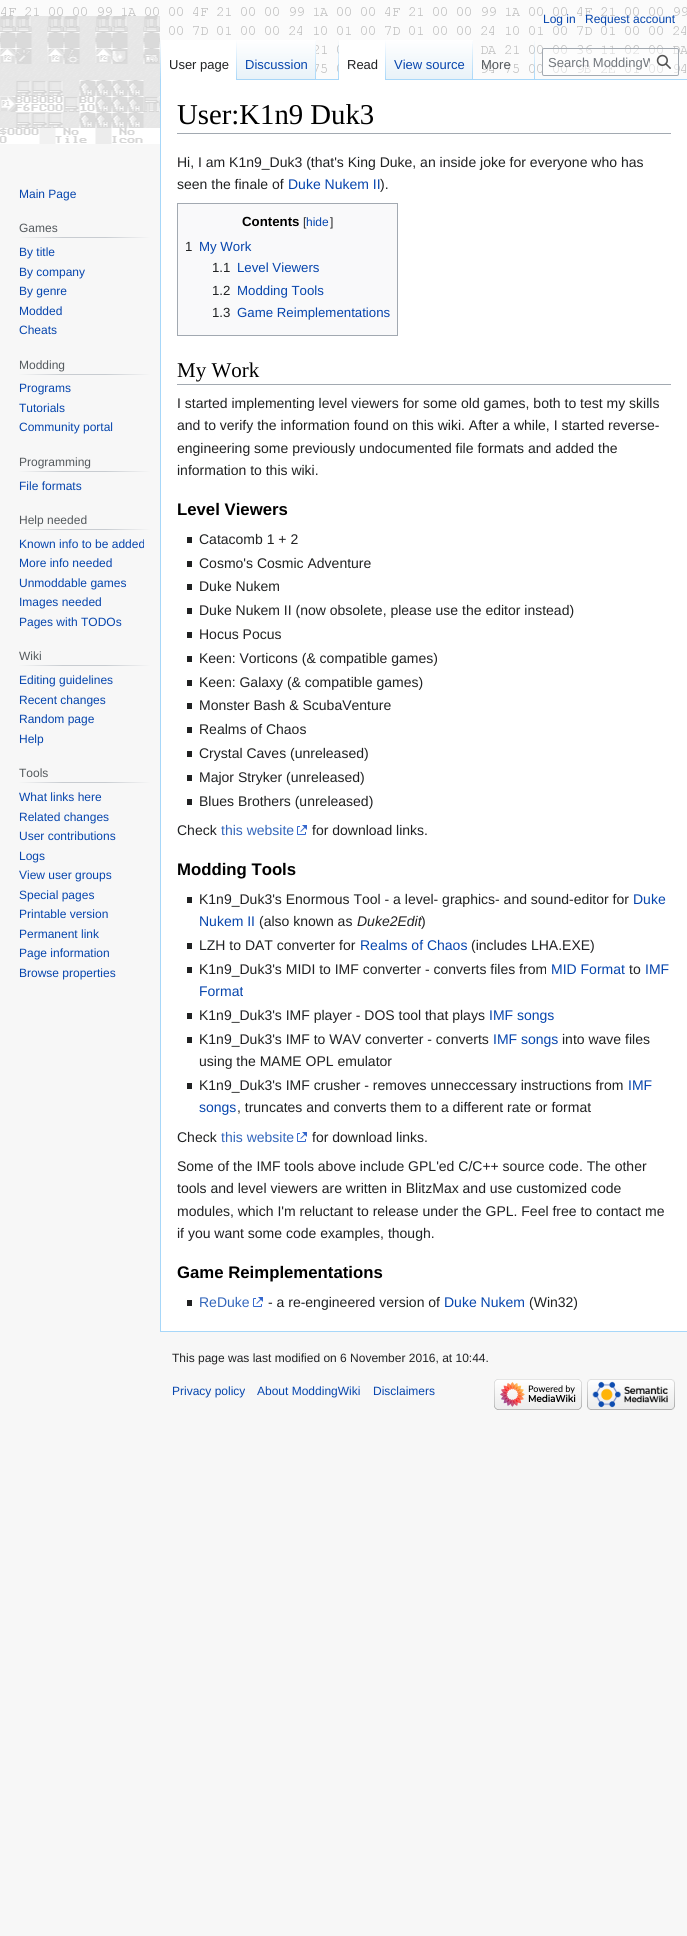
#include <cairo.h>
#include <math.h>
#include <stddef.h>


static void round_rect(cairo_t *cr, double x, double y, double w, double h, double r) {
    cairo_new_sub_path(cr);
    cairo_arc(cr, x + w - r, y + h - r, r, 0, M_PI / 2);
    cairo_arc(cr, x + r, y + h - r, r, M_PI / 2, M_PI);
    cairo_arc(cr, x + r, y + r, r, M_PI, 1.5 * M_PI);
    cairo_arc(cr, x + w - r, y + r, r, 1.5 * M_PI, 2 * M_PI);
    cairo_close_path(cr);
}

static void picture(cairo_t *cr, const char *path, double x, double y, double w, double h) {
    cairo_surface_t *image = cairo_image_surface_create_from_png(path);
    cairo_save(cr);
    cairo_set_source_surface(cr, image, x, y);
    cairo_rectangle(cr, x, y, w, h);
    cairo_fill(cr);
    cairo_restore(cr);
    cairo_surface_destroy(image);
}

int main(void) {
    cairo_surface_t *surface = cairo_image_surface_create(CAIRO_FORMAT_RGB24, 687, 1936);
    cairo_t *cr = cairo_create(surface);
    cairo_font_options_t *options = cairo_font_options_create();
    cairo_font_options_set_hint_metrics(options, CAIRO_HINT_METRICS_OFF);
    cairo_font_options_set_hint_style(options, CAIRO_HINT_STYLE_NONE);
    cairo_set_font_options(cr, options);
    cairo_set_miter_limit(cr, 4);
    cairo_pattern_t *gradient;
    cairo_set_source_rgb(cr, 0.965, 0.965, 0.965);
    cairo_paint(cr);
    cairo_set_source_rgb(cr, 0.984, 0.984, 0.984);
    cairo_rectangle(cr, 0, 0, 687, 79);
    cairo_fill(cr);
    picture(cr, "img1.png", 1, 7, 686, 66);
    cairo_select_font_face(cr, "Liberation Sans", CAIRO_FONT_SLANT_NORMAL, CAIRO_FONT_WEIGHT_NORMAL);
    cairo_set_font_size(cr, 12);
    cairo_set_source_rgb(cr, 0.024, 0.271, 0.678);
    cairo_move_to(cr, 543, 23);
    cairo_show_text(cr, "Log in");
    cairo_move_to(cr, 585, 23);
    cairo_show_text(cr, "Request account");
    cairo_set_source_rgb(cr, 0.655, 0.843, 0.976);
    cairo_rectangle(cr, 160, 1331, 527, 1);
    cairo_fill(cr);
    cairo_rectangle(cr, 160, 79, 1, 1253);
    cairo_fill(cr);
    gradient = cairo_pattern_create_linear(161, 40, 161, 80);
    cairo_pattern_add_color_stop_rgba(gradient, 0, 0.655, 0.843, 0.976, 0);
    cairo_pattern_add_color_stop_rgba(gradient, 1, 0.655, 0.843, 0.976, 1);
    cairo_set_source(cr, gradient);
    cairo_pattern_destroy(gradient);
    cairo_rectangle(cr, 160, 40, 1, 40);
    cairo_fill(cr);
    cairo_set_source_rgb(cr, 1, 1, 1);
    cairo_rectangle(cr, 161, 40, 75, 40);
    cairo_fill(cr);
    gradient = cairo_pattern_create_linear(237, 40, 237, 80);
    cairo_pattern_add_color_stop_rgba(gradient, 0, 1, 1, 1, 1);
    cairo_pattern_add_color_stop_rgba(gradient, 1, 0.655, 0.843, 0.976, 1);
    cairo_set_source(cr, gradient);
    cairo_pattern_destroy(gradient);
    cairo_rectangle(cr, 236, 40, 1, 40);
    cairo_fill(cr);
    cairo_set_font_size(cr, 13);
    cairo_set_source_rgb(cr, 0.125, 0.129, 0.133);
    cairo_move_to(cr, 169, 69);
    cairo_show_text(cr, "User page");
    gradient = cairo_pattern_create_linear(277, 80, 277, 40);
    cairo_pattern_add_color_stop_rgba(gradient, 0, 0.467, 0.757, 0.965, 1);
    cairo_pattern_add_color_stop_rgba(gradient, 0.03, 0.91, 0.949, 0.973, 1);
    cairo_pattern_add_color_stop_rgba(gradient, 1, 1, 1, 1, 1);
    cairo_set_source(cr, gradient);
    cairo_pattern_destroy(gradient);
    cairo_rectangle(cr, 237, 40, 79, 40);
    cairo_fill(cr);
    gradient = cairo_pattern_create_linear(316, 40, 316, 80);
    cairo_pattern_add_color_stop_rgba(gradient, 0, 0.655, 0.843, 0.976, 0);
    cairo_pattern_add_color_stop_rgba(gradient, 1, 0.655, 0.843, 0.976, 1);
    cairo_set_source(cr, gradient);
    cairo_pattern_destroy(gradient);
    cairo_rectangle(cr, 315, 40, 1, 40);
    cairo_fill(cr);
    cairo_set_source_rgb(cr, 0.024, 0.271, 0.678);
    cairo_move_to(cr, 245, 69);
    cairo_show_text(cr, "Discussion");
    cairo_set_source_rgb(cr, 0.655, 0.843, 0.976);
    cairo_rectangle(cr, 316, 79, 371, 1);
    cairo_fill(cr);
    gradient = cairo_pattern_create_linear(339, 40, 339, 80);
    cairo_pattern_add_color_stop_rgba(gradient, 0, 0.655, 0.843, 0.976, 0);
    cairo_pattern_add_color_stop_rgba(gradient, 1, 0.655, 0.843, 0.976, 1);
    cairo_set_source(cr, gradient);
    cairo_pattern_destroy(gradient);
    cairo_rectangle(cr, 338, 40, 1, 40);
    cairo_fill(cr);
    cairo_set_source_rgb(cr, 1, 1, 1);
    cairo_rectangle(cr, 339, 40, 46, 40);
    cairo_fill(cr);
    gradient = cairo_pattern_create_linear(386, 40, 386, 80);
    cairo_pattern_add_color_stop_rgba(gradient, 0, 1, 1, 1, 1);
    cairo_pattern_add_color_stop_rgba(gradient, 1, 0.655, 0.843, 0.976, 1);
    cairo_set_source(cr, gradient);
    cairo_pattern_destroy(gradient);
    cairo_rectangle(cr, 385, 40, 1, 40);
    cairo_fill(cr);
    cairo_set_source_rgb(cr, 0.125, 0.129, 0.133);
    cairo_move_to(cr, 347, 69);
    cairo_show_text(cr, "Read");
    gradient = cairo_pattern_create_linear(430, 80, 430, 40);
    cairo_pattern_add_color_stop_rgba(gradient, 0, 0.467, 0.757, 0.965, 1);
    cairo_pattern_add_color_stop_rgba(gradient, 0.03, 0.91, 0.949, 0.973, 1);
    cairo_pattern_add_color_stop_rgba(gradient, 1, 1, 1, 1, 1);
    cairo_set_source(cr, gradient);
    cairo_pattern_destroy(gradient);
    cairo_rectangle(cr, 386, 40, 87, 39);
    cairo_fill(cr);
    gradient = cairo_pattern_create_linear(473, 40, 473, 80);
    cairo_pattern_add_color_stop_rgba(gradient, 0, 0.655, 0.843, 0.976, 0);
    cairo_pattern_add_color_stop_rgba(gradient, 1, 0.655, 0.843, 0.976, 1);
    cairo_set_source(cr, gradient);
    cairo_pattern_destroy(gradient);
    cairo_rectangle(cr, 472, 40, 1, 40);
    cairo_fill(cr);
    cairo_set_source_rgb(cr, 0.024, 0.271, 0.678);
    cairo_move_to(cr, 394, 69);
    cairo_show_text(cr, "View source");
    gradient = cairo_pattern_create_linear(535, 40, 535, 80);
    cairo_pattern_add_color_stop_rgba(gradient, 0, 0.655, 0.843, 0.976, 0);
    cairo_pattern_add_color_stop_rgba(gradient, 1, 0.655, 0.843, 0.976, 1);
    cairo_set_source(cr, gradient);
    cairo_pattern_destroy(gradient);
    cairo_rectangle(cr, 534, 40, 1, 40);
    cairo_fill(cr);
    cairo_set_source_rgb(cr, 0.329, 0.349, 0.365);
    cairo_move_to(cr, 481, 69);
    cairo_show_text(cr, "More");
    cairo_set_source_rgba(cr, 1, 1, 1, 0.5);
    round_rect(cr, 542.5, 48.5, 136, 27, 1.5);
    cairo_fill_preserve(cr);
    cairo_set_source_rgb(cr, 0.635, 0.663, 0.694);
    cairo_set_line_width(cr, 1);
    cairo_stroke(cr);
    cairo_save(cr);
    cairo_rectangle(cr, 548, 55, 102, 15);
    cairo_clip(cr);
    cairo_set_source_rgb(cr, 0.447, 0.467, 0.49);
    cairo_move_to(cr, 548, 67);
    cairo_show_text(cr, "Search ModdingW");
    cairo_restore(cr);
    picture(cr, "img2.png", 656, 54, 15, 15);
    picture(cr, "img3.png", 0, 16, 160, 128);
    cairo_set_font_size(cr, 12);
    cairo_set_source_rgb(cr, 0.024, 0.271, 0.678);
    cairo_move_to(cr, 19, 198);
    cairo_show_text(cr, "Main Page");
    gradient = cairo_pattern_create_linear(19, 238, 150, 238);
    cairo_pattern_add_color_stop_rgba(gradient, 0, 0.965, 0.965, 0.965, 1);
    cairo_pattern_add_color_stop_rgba(gradient, 0.33, 0.784, 0.8, 0.82, 1);
    cairo_pattern_add_color_stop_rgba(gradient, 0.66, 0.784, 0.8, 0.82, 1);
    cairo_pattern_add_color_stop_rgba(gradient, 1, 0.965, 0.965, 0.965, 1);
    cairo_set_source(cr, gradient);
    cairo_pattern_destroy(gradient);
    cairo_rectangle(cr, 19, 237, 131, 1);
    cairo_fill(cr);
    cairo_set_source_rgb(cr, 0.329, 0.349, 0.365);
    cairo_move_to(cr, 19, 232);
    cairo_show_text(cr, "Games");
    cairo_set_source_rgb(cr, 0.024, 0.271, 0.678);
    cairo_move_to(cr, 19, 256);
    cairo_show_text(cr, "By title");
    cairo_move_to(cr, 19, 276);
    cairo_show_text(cr, "By company");
    cairo_move_to(cr, 19, 295);
    cairo_show_text(cr, "By genre");
    cairo_move_to(cr, 19, 315);
    cairo_show_text(cr, "Modded");
    cairo_move_to(cr, 19, 334);
    cairo_show_text(cr, "Cheats");
    gradient = cairo_pattern_create_linear(19, 375, 150, 375);
    cairo_pattern_add_color_stop_rgba(gradient, 0, 0.965, 0.965, 0.965, 1);
    cairo_pattern_add_color_stop_rgba(gradient, 0.33, 0.784, 0.8, 0.82, 1);
    cairo_pattern_add_color_stop_rgba(gradient, 0.66, 0.784, 0.8, 0.82, 1);
    cairo_pattern_add_color_stop_rgba(gradient, 1, 0.965, 0.965, 0.965, 1);
    cairo_set_source(cr, gradient);
    cairo_pattern_destroy(gradient);
    cairo_rectangle(cr, 19, 374, 131, 1);
    cairo_fill(cr);
    cairo_set_source_rgb(cr, 0.329, 0.349, 0.365);
    cairo_move_to(cr, 19, 369);
    cairo_show_text(cr, "Modding");
    cairo_set_source_rgb(cr, 0.024, 0.271, 0.678);
    cairo_move_to(cr, 19, 392);
    cairo_show_text(cr, "Programs");
    cairo_move_to(cr, 19, 412);
    cairo_show_text(cr, "Tutorials");
    cairo_move_to(cr, 19, 431);
    cairo_show_text(cr, "Community portal");
    gradient = cairo_pattern_create_linear(19, 472, 150, 472);
    cairo_pattern_add_color_stop_rgba(gradient, 0, 0.965, 0.965, 0.965, 1);
    cairo_pattern_add_color_stop_rgba(gradient, 0.33, 0.784, 0.8, 0.82, 1);
    cairo_pattern_add_color_stop_rgba(gradient, 0.66, 0.784, 0.8, 0.82, 1);
    cairo_pattern_add_color_stop_rgba(gradient, 1, 0.965, 0.965, 0.965, 1);
    cairo_set_source(cr, gradient);
    cairo_pattern_destroy(gradient);
    cairo_rectangle(cr, 19, 471, 131, 1);
    cairo_fill(cr);
    cairo_set_source_rgb(cr, 0.329, 0.349, 0.365);
    cairo_move_to(cr, 19, 466);
    cairo_show_text(cr, "Programming");
    cairo_set_source_rgb(cr, 0.024, 0.271, 0.678);
    cairo_move_to(cr, 19, 490);
    cairo_show_text(cr, "File formats");
    gradient = cairo_pattern_create_linear(19, 530, 150, 530);
    cairo_pattern_add_color_stop_rgba(gradient, 0, 0.965, 0.965, 0.965, 1);
    cairo_pattern_add_color_stop_rgba(gradient, 0.33, 0.784, 0.8, 0.82, 1);
    cairo_pattern_add_color_stop_rgba(gradient, 0.66, 0.784, 0.8, 0.82, 1);
    cairo_pattern_add_color_stop_rgba(gradient, 1, 0.965, 0.965, 0.965, 1);
    cairo_set_source(cr, gradient);
    cairo_pattern_destroy(gradient);
    cairo_rectangle(cr, 19, 529, 131, 1);
    cairo_fill(cr);
    cairo_set_source_rgb(cr, 0.329, 0.349, 0.365);
    cairo_move_to(cr, 19, 524);
    cairo_show_text(cr, "Help needed");
    cairo_set_source_rgb(cr, 0.024, 0.271, 0.678);
    cairo_move_to(cr, 19, 548);
    cairo_show_text(cr, "Known info to be added");
    cairo_move_to(cr, 19, 567);
    cairo_show_text(cr, "More info needed");
    cairo_move_to(cr, 19, 587);
    cairo_show_text(cr, "Unmoddable games");
    cairo_move_to(cr, 19, 606);
    cairo_show_text(cr, "Images needed");
    cairo_move_to(cr, 19, 626);
    cairo_show_text(cr, "Pages with TODOs");
    gradient = cairo_pattern_create_linear(19, 666, 150, 666);
    cairo_pattern_add_color_stop_rgba(gradient, 0, 0.965, 0.965, 0.965, 1);
    cairo_pattern_add_color_stop_rgba(gradient, 0.33, 0.784, 0.8, 0.82, 1);
    cairo_pattern_add_color_stop_rgba(gradient, 0.66, 0.784, 0.8, 0.82, 1);
    cairo_pattern_add_color_stop_rgba(gradient, 1, 0.965, 0.965, 0.965, 1);
    cairo_set_source(cr, gradient);
    cairo_pattern_destroy(gradient);
    cairo_rectangle(cr, 19, 665, 131, 1);
    cairo_fill(cr);
    cairo_set_source_rgb(cr, 0.329, 0.349, 0.365);
    cairo_move_to(cr, 19, 660);
    cairo_show_text(cr, "Wiki");
    cairo_set_source_rgb(cr, 0.024, 0.271, 0.678);
    cairo_move_to(cr, 19, 684);
    cairo_show_text(cr, "Editing guidelines");
    cairo_move_to(cr, 19, 704);
    cairo_show_text(cr, "Recent changes");
    cairo_move_to(cr, 19, 723);
    cairo_show_text(cr, "Random page");
    cairo_move_to(cr, 19, 743);
    cairo_show_text(cr, "Help");
    gradient = cairo_pattern_create_linear(19, 783, 150, 783);
    cairo_pattern_add_color_stop_rgba(gradient, 0, 0.965, 0.965, 0.965, 1);
    cairo_pattern_add_color_stop_rgba(gradient, 0.33, 0.784, 0.8, 0.82, 1);
    cairo_pattern_add_color_stop_rgba(gradient, 0.66, 0.784, 0.8, 0.82, 1);
    cairo_pattern_add_color_stop_rgba(gradient, 1, 0.965, 0.965, 0.965, 1);
    cairo_set_source(cr, gradient);
    cairo_pattern_destroy(gradient);
    cairo_rectangle(cr, 19, 782, 131, 1);
    cairo_fill(cr);
    cairo_set_source_rgb(cr, 0.329, 0.349, 0.365);
    cairo_move_to(cr, 19, 777);
    cairo_show_text(cr, "Tools");
    cairo_set_source_rgb(cr, 0.024, 0.271, 0.678);
    cairo_move_to(cr, 19, 801);
    cairo_show_text(cr, "What links here");
    cairo_move_to(cr, 19, 821);
    cairo_show_text(cr, "Related changes");
    cairo_move_to(cr, 19, 840);
    cairo_show_text(cr, "User contributions");
    cairo_move_to(cr, 19, 860);
    cairo_show_text(cr, "Logs");
    cairo_move_to(cr, 19, 879);
    cairo_show_text(cr, "View user groups");
    cairo_move_to(cr, 19, 899);
    cairo_show_text(cr, "Special pages");
    cairo_move_to(cr, 19, 918);
    cairo_show_text(cr, "Printable version");
    cairo_move_to(cr, 19, 938);
    cairo_show_text(cr, "Permanent link");
    cairo_move_to(cr, 19, 957);
    cairo_show_text(cr, "Page information");
    cairo_move_to(cr, 19, 977);
    cairo_show_text(cr, "Browse properties");
    cairo_set_source_rgb(cr, 1, 1, 1);
    cairo_rectangle(cr, 161, 80, 526, 1251);
    cairo_fill(cr);
    cairo_set_source_rgb(cr, 0.635, 0.663, 0.694);
    cairo_rectangle(cr, 177, 133, 494, 1);
    cairo_fill(cr);
    cairo_select_font_face(cr, "Liberation Serif", CAIRO_FONT_SLANT_NORMAL, CAIRO_FONT_WEIGHT_NORMAL);
    cairo_set_font_size(cr, 28.75);
    cairo_set_source_rgb(cr, 0, 0, 0);
    cairo_move_to(cr, 177, 124);
    cairo_show_text(cr, "User:K1n9 Duk3");
    cairo_select_font_face(cr, "Liberation Sans", CAIRO_FONT_SLANT_NORMAL, CAIRO_FONT_WEIGHT_NORMAL);
    cairo_set_font_size(cr, 14);
    cairo_set_source_rgb(cr, 0.125, 0.129, 0.133);
    cairo_move_to(cr, 177, 167);
    cairo_show_text(cr, "Hi, I am K1n9_Duk3 (that's King Duke, an inside joke for everyone who has");
    cairo_move_to(cr, 177, 189);
    cairo_show_text(cr, "seen the finale of");
    cairo_set_source_rgb(cr, 0.024, 0.271, 0.678);
    cairo_move_to(cr, 288, 189);
    cairo_show_text(cr, "Duke Nukem II");
    cairo_set_source_rgb(cr, 0.125, 0.129, 0.133);
    cairo_move_to(cr, 380, 189);
    cairo_show_text(cr, ").");
    cairo_set_source_rgb(cr, 0.973, 0.976, 0.98);
    cairo_rectangle(cr, 177.5, 203.5, 220, 132);
    cairo_fill_preserve(cr);
    cairo_set_source_rgb(cr, 0.635, 0.663, 0.694);
    cairo_stroke(cr);
    cairo_select_font_face(cr, "Liberation Sans", CAIRO_FONT_SLANT_NORMAL, CAIRO_FONT_WEIGHT_BOLD);
    cairo_set_font_size(cr, 13.25);
    cairo_set_source_rgb(cr, 0, 0, 0);
    cairo_move_to(cr, 242, 226);
    cairo_show_text(cr, "Contents");
    cairo_select_font_face(cr, "Liberation Sans", CAIRO_FONT_SLANT_NORMAL, CAIRO_FONT_WEIGHT_NORMAL);
    cairo_set_font_size(cr, 12);
    cairo_set_source_rgb(cr, 0.125, 0.129, 0.133);
    cairo_move_to(cr, 303, 226);
    cairo_show_text(cr, "[");
    cairo_set_source_rgb(cr, 0.024, 0.271, 0.678);
    cairo_move_to(cr, 306, 226);
    cairo_show_text(cr, "hide");
    cairo_set_source_rgb(cr, 0.125, 0.129, 0.133);
    cairo_move_to(cr, 330, 226);
    cairo_show_text(cr, "]");
    cairo_set_font_size(cr, 13.25);
    cairo_move_to(cr, 185, 251);
    cairo_show_text(cr, "1");
    cairo_set_source_rgb(cr, 0.024, 0.271, 0.678);
    cairo_move_to(cr, 199, 251);
    cairo_show_text(cr, "My Work");
    cairo_set_source_rgb(cr, 0.125, 0.129, 0.133);
    cairo_move_to(cr, 212, 272);
    cairo_show_text(cr, "1.1");
    cairo_set_source_rgb(cr, 0.024, 0.271, 0.678);
    cairo_move_to(cr, 237, 272);
    cairo_show_text(cr, "Level Viewers");
    cairo_set_source_rgb(cr, 0.125, 0.129, 0.133);
    cairo_move_to(cr, 212, 295);
    cairo_show_text(cr, "1.2");
    cairo_set_source_rgb(cr, 0.024, 0.271, 0.678);
    cairo_move_to(cr, 237, 295);
    cairo_show_text(cr, "Modding Tools");
    cairo_set_source_rgb(cr, 0.125, 0.129, 0.133);
    cairo_move_to(cr, 212, 317);
    cairo_show_text(cr, "1.3");
    cairo_set_source_rgb(cr, 0.024, 0.271, 0.678);
    cairo_move_to(cr, 237, 317);
    cairo_show_text(cr, "Game Reimplementations");
    cairo_set_source_rgb(cr, 0.635, 0.663, 0.694);
    cairo_rectangle(cr, 177, 384, 494, 1);
    cairo_fill(cr);
    cairo_select_font_face(cr, "Liberation Serif", CAIRO_FONT_SLANT_NORMAL, CAIRO_FONT_WEIGHT_NORMAL);
    cairo_set_font_size(cr, 21);
    cairo_set_source_rgb(cr, 0, 0, 0);
    cairo_move_to(cr, 177, 377);
    cairo_show_text(cr, "My Work");
    cairo_select_font_face(cr, "Liberation Sans", CAIRO_FONT_SLANT_NORMAL, CAIRO_FONT_WEIGHT_NORMAL);
    cairo_set_font_size(cr, 14);
    cairo_set_source_rgb(cr, 0.125, 0.129, 0.133);
    cairo_move_to(cr, 177, 408);
    cairo_show_text(cr, "I started implementing level viewers for some old games, both to test my skills");
    cairo_move_to(cr, 177, 430);
    cairo_show_text(cr, "and to verify the information found on this wiki. After a while, I started reverse-");
    cairo_move_to(cr, 177, 453);
    cairo_show_text(cr, "engineering some previously undocumented file formats and added the");
    cairo_move_to(cr, 177, 475);
    cairo_show_text(cr, "information to this wiki.");
    cairo_select_font_face(cr, "Liberation Sans", CAIRO_FONT_SLANT_NORMAL, CAIRO_FONT_WEIGHT_BOLD);
    cairo_set_font_size(cr, 16.75);
    cairo_set_source_rgb(cr, 0, 0, 0);
    cairo_move_to(cr, 177, 515);
    cairo_show_text(cr, "Level Viewers");
    cairo_set_source_rgb(cr, 0.125, 0.129, 0.133);
    cairo_rectangle(cr, 187, 537, 5, 6);
    cairo_fill(cr);
    cairo_select_font_face(cr, "Liberation Sans", CAIRO_FONT_SLANT_NORMAL, CAIRO_FONT_WEIGHT_NORMAL);
    cairo_set_font_size(cr, 14);
    cairo_move_to(cr, 199, 544);
    cairo_show_text(cr, "Catacomb 1 + 2");
    cairo_rectangle(cr, 187, 561, 5, 6);
    cairo_fill(cr);
    cairo_move_to(cr, 199, 568);
    cairo_show_text(cr, "Cosmo's Cosmic Adventure");
    cairo_rectangle(cr, 187, 584, 5, 6);
    cairo_fill(cr);
    cairo_move_to(cr, 199, 591);
    cairo_show_text(cr, "Duke Nukem");
    cairo_rectangle(cr, 187, 608, 5, 6);
    cairo_fill(cr);
    cairo_move_to(cr, 199, 615);
    cairo_show_text(cr, "Duke Nukem II (now obsolete, please use the editor instead)");
    cairo_rectangle(cr, 187, 632, 5, 6);
    cairo_fill(cr);
    cairo_move_to(cr, 199, 639);
    cairo_show_text(cr, "Hocus Pocus");
    cairo_rectangle(cr, 187, 656, 5, 6);
    cairo_fill(cr);
    cairo_move_to(cr, 199, 663);
    cairo_show_text(cr, "Keen: Vorticons (& compatible games)");
    cairo_rectangle(cr, 187, 680, 5, 6);
    cairo_fill(cr);
    cairo_move_to(cr, 199, 687);
    cairo_show_text(cr, "Keen: Galaxy (& compatible games)");
    cairo_rectangle(cr, 187, 703, 5, 6);
    cairo_fill(cr);
    cairo_move_to(cr, 199, 710);
    cairo_show_text(cr, "Monster Bash & ScubaVenture");
    cairo_rectangle(cr, 187, 727, 5, 6);
    cairo_fill(cr);
    cairo_move_to(cr, 199, 734);
    cairo_show_text(cr, "Realms of Chaos");
    cairo_rectangle(cr, 187, 751, 5, 6);
    cairo_fill(cr);
    cairo_move_to(cr, 199, 758);
    cairo_show_text(cr, "Crystal Caves (unreleased)");
    cairo_rectangle(cr, 187, 775, 5, 6);
    cairo_fill(cr);
    cairo_move_to(cr, 199, 782);
    cairo_show_text(cr, "Major Stryker (unreleased)");
    cairo_rectangle(cr, 187, 799, 5, 6);
    cairo_fill(cr);
    cairo_move_to(cr, 199, 806);
    cairo_show_text(cr, "Blues Brothers (unreleased)");
    cairo_move_to(cr, 177, 835);
    cairo_show_text(cr, "Check");
    cairo_set_source_rgb(cr, 0.2, 0.4, 0.733);
    cairo_move_to(cr, 221, 835);
    cairo_show_text(cr, "this website");
    picture(cr, "img4.png", 297, 825, 10, 10);
    cairo_set_source_rgb(cr, 0.125, 0.129, 0.133);
    cairo_move_to(cr, 312, 835);
    cairo_show_text(cr, "for download links.");
    cairo_select_font_face(cr, "Liberation Sans", CAIRO_FONT_SLANT_NORMAL, CAIRO_FONT_WEIGHT_BOLD);
    cairo_set_font_size(cr, 16.75);
    cairo_set_source_rgb(cr, 0, 0, 0);
    cairo_move_to(cr, 177, 875);
    cairo_show_text(cr, "Modding Tools");
    cairo_set_source_rgb(cr, 0.125, 0.129, 0.133);
    cairo_rectangle(cr, 187, 897, 5, 6);
    cairo_fill(cr);
    cairo_select_font_face(cr, "Liberation Sans", CAIRO_FONT_SLANT_NORMAL, CAIRO_FONT_WEIGHT_NORMAL);
    cairo_set_font_size(cr, 14);
    cairo_move_to(cr, 199, 904);
    cairo_show_text(cr, "K1n9_Duk3's Enormous Tool - a level- graphics- and sound-editor for");
    cairo_set_source_rgb(cr, 0.024, 0.271, 0.678);
    cairo_move_to(cr, 633, 904);
    cairo_show_text(cr, "Duke");
    cairo_move_to(cr, 199, 926);
    cairo_show_text(cr, "Nukem II");
    cairo_set_source_rgb(cr, 0.125, 0.129, 0.133);
    cairo_move_to(cr, 259, 926);
    cairo_show_text(cr, "(also known as");
    cairo_select_font_face(cr, "Liberation Sans", CAIRO_FONT_SLANT_ITALIC, CAIRO_FONT_WEIGHT_NORMAL);
    cairo_move_to(cr, 357, 926);
    cairo_show_text(cr, "Duke2Edit");
    cairo_select_font_face(cr, "Liberation Sans", CAIRO_FONT_SLANT_NORMAL, CAIRO_FONT_WEIGHT_NORMAL);
    cairo_move_to(cr, 421, 926);
    cairo_show_text(cr, ")");
    cairo_rectangle(cr, 187, 943, 5, 6);
    cairo_fill(cr);
    cairo_move_to(cr, 199, 950);
    cairo_show_text(cr, "LZH to DAT converter for");
    cairo_set_source_rgb(cr, 0.024, 0.271, 0.678);
    cairo_move_to(cr, 360, 950);
    cairo_show_text(cr, "Realms of Chaos");
    cairo_set_source_rgb(cr, 0.125, 0.129, 0.133);
    cairo_move_to(cr, 471, 950);
    cairo_show_text(cr, "(includes LHA.EXE)");
    cairo_rectangle(cr, 187, 967, 5, 6);
    cairo_fill(cr);
    cairo_move_to(cr, 199, 974);
    cairo_show_text(cr, "K1n9_Duk3's MIDI to IMF converter - converts files from");
    cairo_set_source_rgb(cr, 0.024, 0.271, 0.678);
    cairo_move_to(cr, 551, 974);
    cairo_show_text(cr, "MID Format");
    cairo_set_source_rgb(cr, 0.125, 0.129, 0.133);
    cairo_move_to(cr, 629, 974);
    cairo_show_text(cr, "to");
    cairo_set_source_rgb(cr, 0.024, 0.271, 0.678);
    cairo_move_to(cr, 645, 974);
    cairo_show_text(cr, "IMF");
    cairo_move_to(cr, 199, 996);
    cairo_show_text(cr, "Format");
    cairo_set_source_rgb(cr, 0.125, 0.129, 0.133);
    cairo_rectangle(cr, 187, 1013, 5, 6);
    cairo_fill(cr);
    cairo_move_to(cr, 199, 1020);
    cairo_show_text(cr, "K1n9_Duk3's IMF player - DOS tool that plays");
    cairo_set_source_rgb(cr, 0.024, 0.271, 0.678);
    cairo_move_to(cr, 489, 1020);
    cairo_show_text(cr, "IMF songs");
    cairo_set_source_rgb(cr, 0.125, 0.129, 0.133);
    cairo_rectangle(cr, 187, 1037, 5, 6);
    cairo_fill(cr);
    cairo_move_to(cr, 199, 1044);
    cairo_show_text(cr, "K1n9_Duk3's IMF to WAV converter - converts");
    cairo_set_source_rgb(cr, 0.024, 0.271, 0.678);
    cairo_move_to(cr, 493, 1044);
    cairo_show_text(cr, "IMF songs");
    cairo_set_source_rgb(cr, 0.125, 0.129, 0.133);
    cairo_move_to(cr, 562, 1044);
    cairo_show_text(cr, "into wave files");
    cairo_move_to(cr, 199, 1066);
    cairo_show_text(cr, "using the MAME OPL emulator");
    cairo_rectangle(cr, 187, 1083, 5, 6);
    cairo_fill(cr);
    cairo_move_to(cr, 199, 1090);
    cairo_show_text(cr, "K1n9_Duk3's IMF crusher - removes unneccessary instructions from");
    cairo_set_source_rgb(cr, 0.024, 0.271, 0.678);
    cairo_move_to(cr, 628, 1090);
    cairo_show_text(cr, "IMF");
    cairo_move_to(cr, 199, 1112);
    cairo_show_text(cr, "songs");
    cairo_set_source_rgb(cr, 0.125, 0.129, 0.133);
    cairo_move_to(cr, 237, 1112);
    cairo_show_text(cr, ", truncates and converts them to a different rate or format");
    cairo_move_to(cr, 177, 1142);
    cairo_show_text(cr, "Check");
    cairo_set_source_rgb(cr, 0.2, 0.4, 0.733);
    cairo_move_to(cr, 221, 1142);
    cairo_show_text(cr, "this website");
    picture(cr, "img4.png", 297, 1132, 10, 10);
    cairo_set_source_rgb(cr, 0.125, 0.129, 0.133);
    cairo_move_to(cr, 312, 1142);
    cairo_show_text(cr, "for download links.");
    cairo_move_to(cr, 177, 1171);
    cairo_show_text(cr, "Some of the IMF tools above include GPL'ed C/C++ source code. The other");
    cairo_move_to(cr, 177, 1193);
    cairo_show_text(cr, "tools and level viewers are written in BlitzMax and use customized code");
    cairo_move_to(cr, 177, 1216);
    cairo_show_text(cr, "modules, which I'm reluctant to release under the GPL. Feel free to contact me");
    cairo_move_to(cr, 177, 1238);
    cairo_show_text(cr, "if you want some code examples, though.");
    cairo_select_font_face(cr, "Liberation Sans", CAIRO_FONT_SLANT_NORMAL, CAIRO_FONT_WEIGHT_BOLD);
    cairo_set_font_size(cr, 16.75);
    cairo_set_source_rgb(cr, 0, 0, 0);
    cairo_move_to(cr, 177, 1278);
    cairo_show_text(cr, "Game Reimplementations");
    cairo_set_source_rgb(cr, 0.125, 0.129, 0.133);
    cairo_rectangle(cr, 187, 1300, 5, 6);
    cairo_fill(cr);
    cairo_select_font_face(cr, "Liberation Sans", CAIRO_FONT_SLANT_NORMAL, CAIRO_FONT_WEIGHT_NORMAL);
    cairo_set_font_size(cr, 14);
    cairo_set_source_rgb(cr, 0.2, 0.4, 0.733);
    cairo_move_to(cr, 199, 1307);
    cairo_show_text(cr, "ReDuke");
    picture(cr, "img4.png", 253, 1297, 10, 10);
    cairo_set_source_rgb(cr, 0.125, 0.129, 0.133);
    cairo_move_to(cr, 268, 1307);
    cairo_show_text(cr, "- a re-engineered version of");
    cairo_set_source_rgb(cr, 0.024, 0.271, 0.678);
    cairo_move_to(cr, 444, 1307);
    cairo_show_text(cr, "Duke Nukem");
    cairo_set_source_rgb(cr, 0.125, 0.129, 0.133);
    cairo_move_to(cr, 529, 1307);
    cairo_show_text(cr, "(Win32)");
    cairo_set_font_size(cr, 12);
    cairo_move_to(cr, 172, 1362);
    cairo_show_text(cr, "This page was last modified on 6 November 2016, at 10:44.");
    cairo_set_source_rgb(cr, 0.024, 0.271, 0.678);
    cairo_move_to(cr, 172, 1395);
    cairo_show_text(cr, "Privacy policy");
    cairo_move_to(cr, 257, 1395);
    cairo_show_text(cr, "About ModdingWiki");
    cairo_move_to(cr, 373, 1395);
    cairo_show_text(cr, "Disclaimers");
    picture(cr, "img5.png", 494, 1379, 88, 31);
    picture(cr, "img6.png", 587, 1379, 88, 31);
    cairo_surface_write_to_png(surface, "page.png");
    cairo_font_options_destroy(options);
    cairo_destroy(cr);
    cairo_surface_destroy(surface);
    return 0;
}
